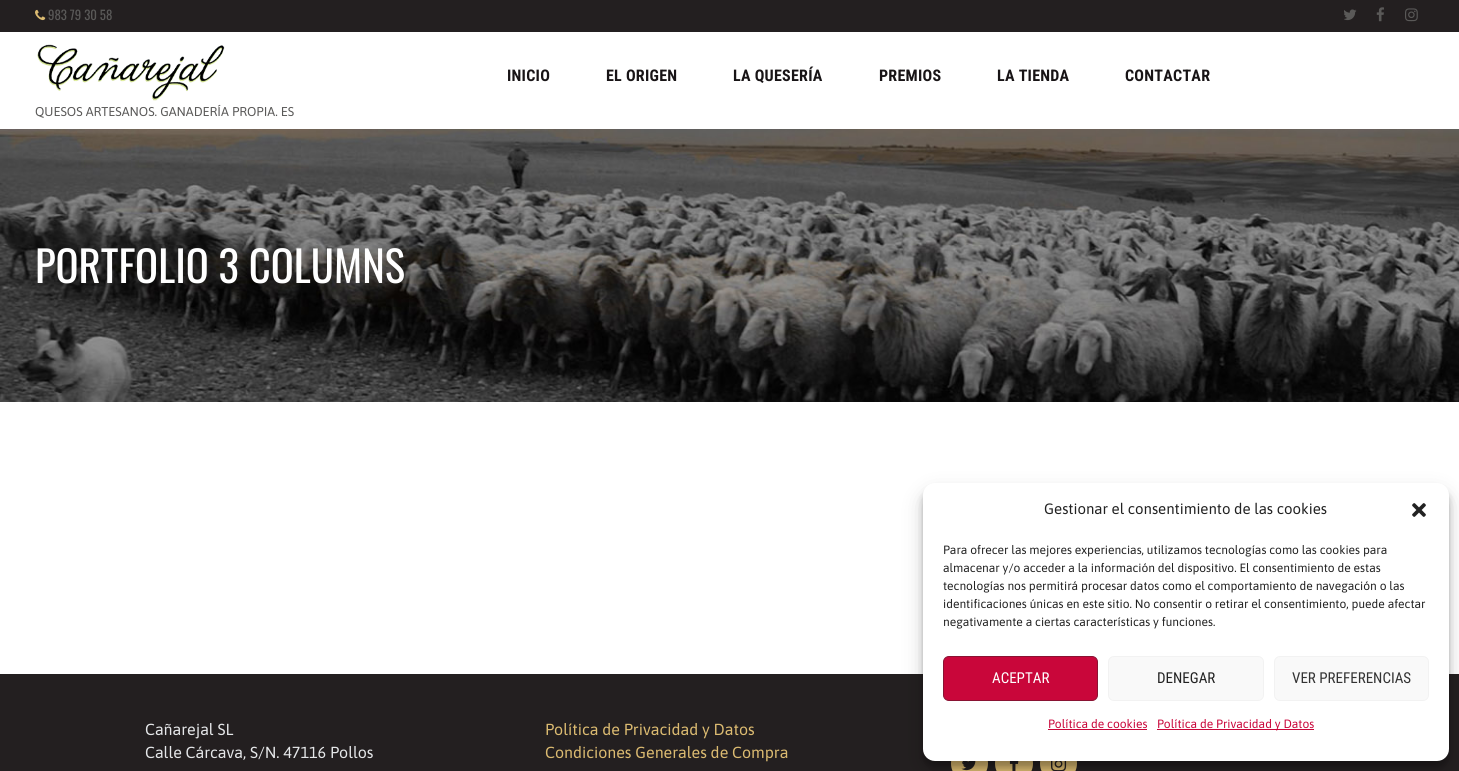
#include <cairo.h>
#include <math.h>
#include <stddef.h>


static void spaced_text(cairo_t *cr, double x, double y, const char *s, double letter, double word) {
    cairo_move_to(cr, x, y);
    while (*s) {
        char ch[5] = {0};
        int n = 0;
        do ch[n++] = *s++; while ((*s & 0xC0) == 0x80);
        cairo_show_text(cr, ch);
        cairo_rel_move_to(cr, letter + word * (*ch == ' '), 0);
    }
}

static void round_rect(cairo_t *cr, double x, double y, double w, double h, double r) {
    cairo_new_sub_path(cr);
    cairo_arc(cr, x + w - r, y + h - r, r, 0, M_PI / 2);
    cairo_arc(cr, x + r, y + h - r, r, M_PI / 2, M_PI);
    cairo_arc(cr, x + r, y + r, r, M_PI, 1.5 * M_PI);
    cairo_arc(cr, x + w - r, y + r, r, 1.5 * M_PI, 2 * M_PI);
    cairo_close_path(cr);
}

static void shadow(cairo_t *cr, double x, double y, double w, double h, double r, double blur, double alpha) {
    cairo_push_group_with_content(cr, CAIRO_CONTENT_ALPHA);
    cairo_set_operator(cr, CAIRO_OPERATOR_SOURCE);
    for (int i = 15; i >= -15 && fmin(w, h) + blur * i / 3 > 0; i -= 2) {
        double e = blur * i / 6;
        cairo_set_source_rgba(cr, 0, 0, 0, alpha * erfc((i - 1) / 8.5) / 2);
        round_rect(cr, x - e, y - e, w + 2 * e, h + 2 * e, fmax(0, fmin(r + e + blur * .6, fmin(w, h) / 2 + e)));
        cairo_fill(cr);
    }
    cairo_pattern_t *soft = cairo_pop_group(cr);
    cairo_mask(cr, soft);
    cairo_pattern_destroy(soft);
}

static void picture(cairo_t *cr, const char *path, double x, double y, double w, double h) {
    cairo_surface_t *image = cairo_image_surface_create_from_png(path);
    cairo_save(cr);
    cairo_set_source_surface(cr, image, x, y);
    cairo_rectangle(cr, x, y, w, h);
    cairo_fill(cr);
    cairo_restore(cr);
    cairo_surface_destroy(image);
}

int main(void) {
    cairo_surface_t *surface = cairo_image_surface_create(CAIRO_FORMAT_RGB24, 1459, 771);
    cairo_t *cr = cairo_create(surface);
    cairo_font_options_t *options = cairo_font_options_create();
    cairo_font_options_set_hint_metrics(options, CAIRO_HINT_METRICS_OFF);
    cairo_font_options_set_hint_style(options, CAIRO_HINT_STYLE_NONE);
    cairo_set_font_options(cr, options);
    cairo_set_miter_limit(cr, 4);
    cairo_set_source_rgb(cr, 1, 1, 1);
    cairo_paint(cr);
    cairo_set_source_rgb(cr, 0.137, 0.122, 0.125);
    cairo_rectangle(cr, 0, 0, 1459, 32);
    cairo_fill(cr);
    picture(cr, "img1.png", 35, 9, 11, 12);
    cairo_select_font_face(cr, "Oswald", CAIRO_FONT_SLANT_NORMAL, CAIRO_FONT_WEIGHT_NORMAL);
    cairo_set_font_size(cr, 12.8);
    cairo_set_source_rgb(cr, 0.353, 0.349, 0.345);
    cairo_move_to(cr, 48, 20);
    cairo_show_text(cr, "983 79 30 58");
    picture(cr, "img2.png", 1344, 9, 13, 12);
    picture(cr, "img3.png", 1376, 7, 8, 15);
    picture(cr, "img4.png", 1405, 8, 13, 14);
    cairo_select_font_face(cr, "Roboto Condensed", CAIRO_FONT_SLANT_NORMAL, CAIRO_FONT_WEIGHT_BOLD);
    cairo_set_font_size(cr, 16);
    cairo_set_source_rgb(cr, 0.094, 0.082, 0.086);
    spaced_text(cr, 507, 81, "INICIO", 0.25, 0);
    spaced_text(cr, 606, 81, "EL ORIGEN", 0.25, 0);
    spaced_text(cr, 733, 81, "LA QUESERÍA", 0.25, 0);
    spaced_text(cr, 879, 81, "PREMIOS", 0.25, 0);
    spaced_text(cr, 997, 81, "LA TIENDA", 0.25, 0);
    spaced_text(cr, 1125, 81, "CONTACTAR", 0.25, 0);
    picture(cr, "img5.png", 37, 44, 188, 57);
    cairo_select_font_face(cr, "Asap", CAIRO_FONT_SLANT_NORMAL, CAIRO_FONT_WEIGHT_NORMAL);
    cairo_set_font_size(cr, 12.8);
    cairo_set_source_rgb(cr, 0.353, 0.349, 0.345);
    cairo_move_to(cr, 35, 116);
    cairo_show_text(cr, "QUESOS ARTESANOS. GANADERÍA PROPIA. ES");
    picture(cr, "img6.png", 0, 129, 1459, 273);
    cairo_select_font_face(cr, "Oswald", CAIRO_FONT_SLANT_NORMAL, CAIRO_FONT_WEIGHT_NORMAL);
    cairo_set_font_size(cr, 42.75);
    cairo_set_source_rgb(cr, 1, 1, 1);
    cairo_move_to(cr, 35, 283);
    cairo_show_text(cr, "PORTFOLIO 3 COLUMNS");
    cairo_set_source_rgb(cr, 0.137, 0.122, 0.125);
    cairo_rectangle(cr, 0, 674, 1459, 97);
    cairo_fill(cr);
    cairo_select_font_face(cr, "Asap", CAIRO_FONT_SLANT_NORMAL, CAIRO_FONT_WEIGHT_NORMAL);
    cairo_set_font_size(cr, 16);
    cairo_set_source_rgb(cr, 0.898, 0.906, 0.914);
    cairo_move_to(cr, 145, 735);
    cairo_show_text(cr, "Cañarejal SL");
    cairo_move_to(cr, 145, 758);
    cairo_show_text(cr, "Calle Cárcava, S/N. 47116 Pollos");
    cairo_set_source_rgb(cr, 0.863, 0.733, 0.443);
    cairo_move_to(cr, 545, 735);
    cairo_show_text(cr, "Política de Privacidad y Datos");
    cairo_move_to(cr, 545, 758);
    cairo_show_text(cr, "Condiciones Generales de Compra");
    cairo_new_path(cr);
    cairo_arc(cr, 969.5, 763.5, 18.5, 0, 2 * M_PI);
    cairo_fill(cr);
    picture(cr, "img7.png", 961, 761, 15, 10);
    round_rect(cr, 995, 745, 38, 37, 18.5);
    cairo_fill(cr);
    picture(cr, "img8.png", 1009, 761, 10, 10);
    cairo_arc(cr, 1058.5, 763.5, 18.5, 0, 2 * M_PI);
    cairo_fill(cr);
    picture(cr, "img9.png", 1051, 761, 16, 10);
    cairo_set_source_rgb(cr, 0, 0, 0);
    shadow(cr, 923, 489, 526, 278, 12, 3, 0.23);
    shadow(cr, 923, 493, 526, 278, 12, 10, 0.19);
    cairo_set_source_rgb(cr, 1, 1, 1);
    round_rect(cr, 923, 483, 526, 278, 12);
    cairo_fill(cr);
    cairo_set_font_size(cr, 15);
    cairo_set_source_rgb(cr, 0.133, 0.133, 0.133);
    cairo_move_to(cr, 1044, 514);
    cairo_show_text(cr, "Gestionar el consentimiento de las cookies");
    picture(cr, "img10.png", 1412, 503, 14, 14);
    cairo_set_font_size(cr, 12);
    cairo_move_to(cr, 943, 554);
    cairo_show_text(cr, "Para ofrecer las mejores experiencias, utilizamos tecnologías como las cookies para");
    cairo_move_to(cr, 943, 572);
    cairo_show_text(cr, "almacenar y/o acceder a la información del dispositivo. El consentimiento de estas");
    cairo_move_to(cr, 943, 590);
    cairo_show_text(cr, "tecnologías nos permitirá procesar datos como el comportamiento de navegación o las");
    cairo_move_to(cr, 943, 608);
    cairo_show_text(cr, "identificaciones únicas en este sitio. No consentir o retirar el consentimiento, puede afectar");
    cairo_move_to(cr, 943, 626);
    cairo_show_text(cr, "negativamente a ciertas características y funciones.");
    cairo_set_source_rgb(cr, 0.788, 0.024, 0.227);
    round_rect(cr, 943.5, 656.5, 154, 44, 5.5);
    cairo_fill_preserve(cr);
    cairo_set_source_rgb(cr, 0.537, 0.078, 0.2);
    cairo_set_line_width(cr, 1);
    cairo_stroke(cr);
    cairo_select_font_face(cr, "Roboto Condensed", CAIRO_FONT_SLANT_NORMAL, CAIRO_FONT_WEIGHT_NORMAL);
    cairo_set_font_size(cr, 15);
    cairo_set_source_rgb(cr, 1, 1, 1);
    cairo_move_to(cr, 992, 683);
    cairo_show_text(cr, "ACEPTAR");
    cairo_set_source_rgb(cr, 0.976, 0.976, 0.976);
    round_rect(cr, 1108.5, 656.5, 155, 44, 5.5);
    cairo_fill_preserve(cr);
    cairo_set_source_rgb(cr, 0.949, 0.949, 0.949);
    cairo_stroke(cr);
    cairo_set_source_rgb(cr, 0.133, 0.133, 0.133);
    cairo_move_to(cr, 1157, 683);
    cairo_show_text(cr, "DENEGAR");
    cairo_set_source_rgb(cr, 0.976, 0.976, 0.976);
    round_rect(cr, 1274.5, 656.5, 154, 44, 5.5);
    cairo_fill_preserve(cr);
    cairo_set_source_rgb(cr, 0.949, 0.949, 0.949);
    cairo_stroke(cr);
    cairo_set_source_rgb(cr, 0.2, 0.2, 0.2);
    cairo_move_to(cr, 1292, 683);
    cairo_show_text(cr, "VER PREFERENCIAS");
    cairo_select_font_face(cr, "Asap", CAIRO_FONT_SLANT_NORMAL, CAIRO_FONT_WEIGHT_NORMAL);
    cairo_set_font_size(cr, 12);
    cairo_set_source_rgb(cr, 0.788, 0.024, 0.227);
    cairo_move_to(cr, 1048, 728);
    cairo_show_text(cr, "Política de cookies");
    cairo_rectangle(cr, 1048, 729, 99, 1);
    cairo_fill(cr);
    cairo_rectangle(cr, 1157, 729, 157, 1);
    cairo_fill(cr);
    cairo_move_to(cr, 1157, 728);
    cairo_show_text(cr, "Política de Privacidad y Datos");
    cairo_surface_write_to_png(surface, "page.png");
    cairo_font_options_destroy(options);
    cairo_destroy(cr);
    cairo_surface_destroy(surface);
    return 0;
}
